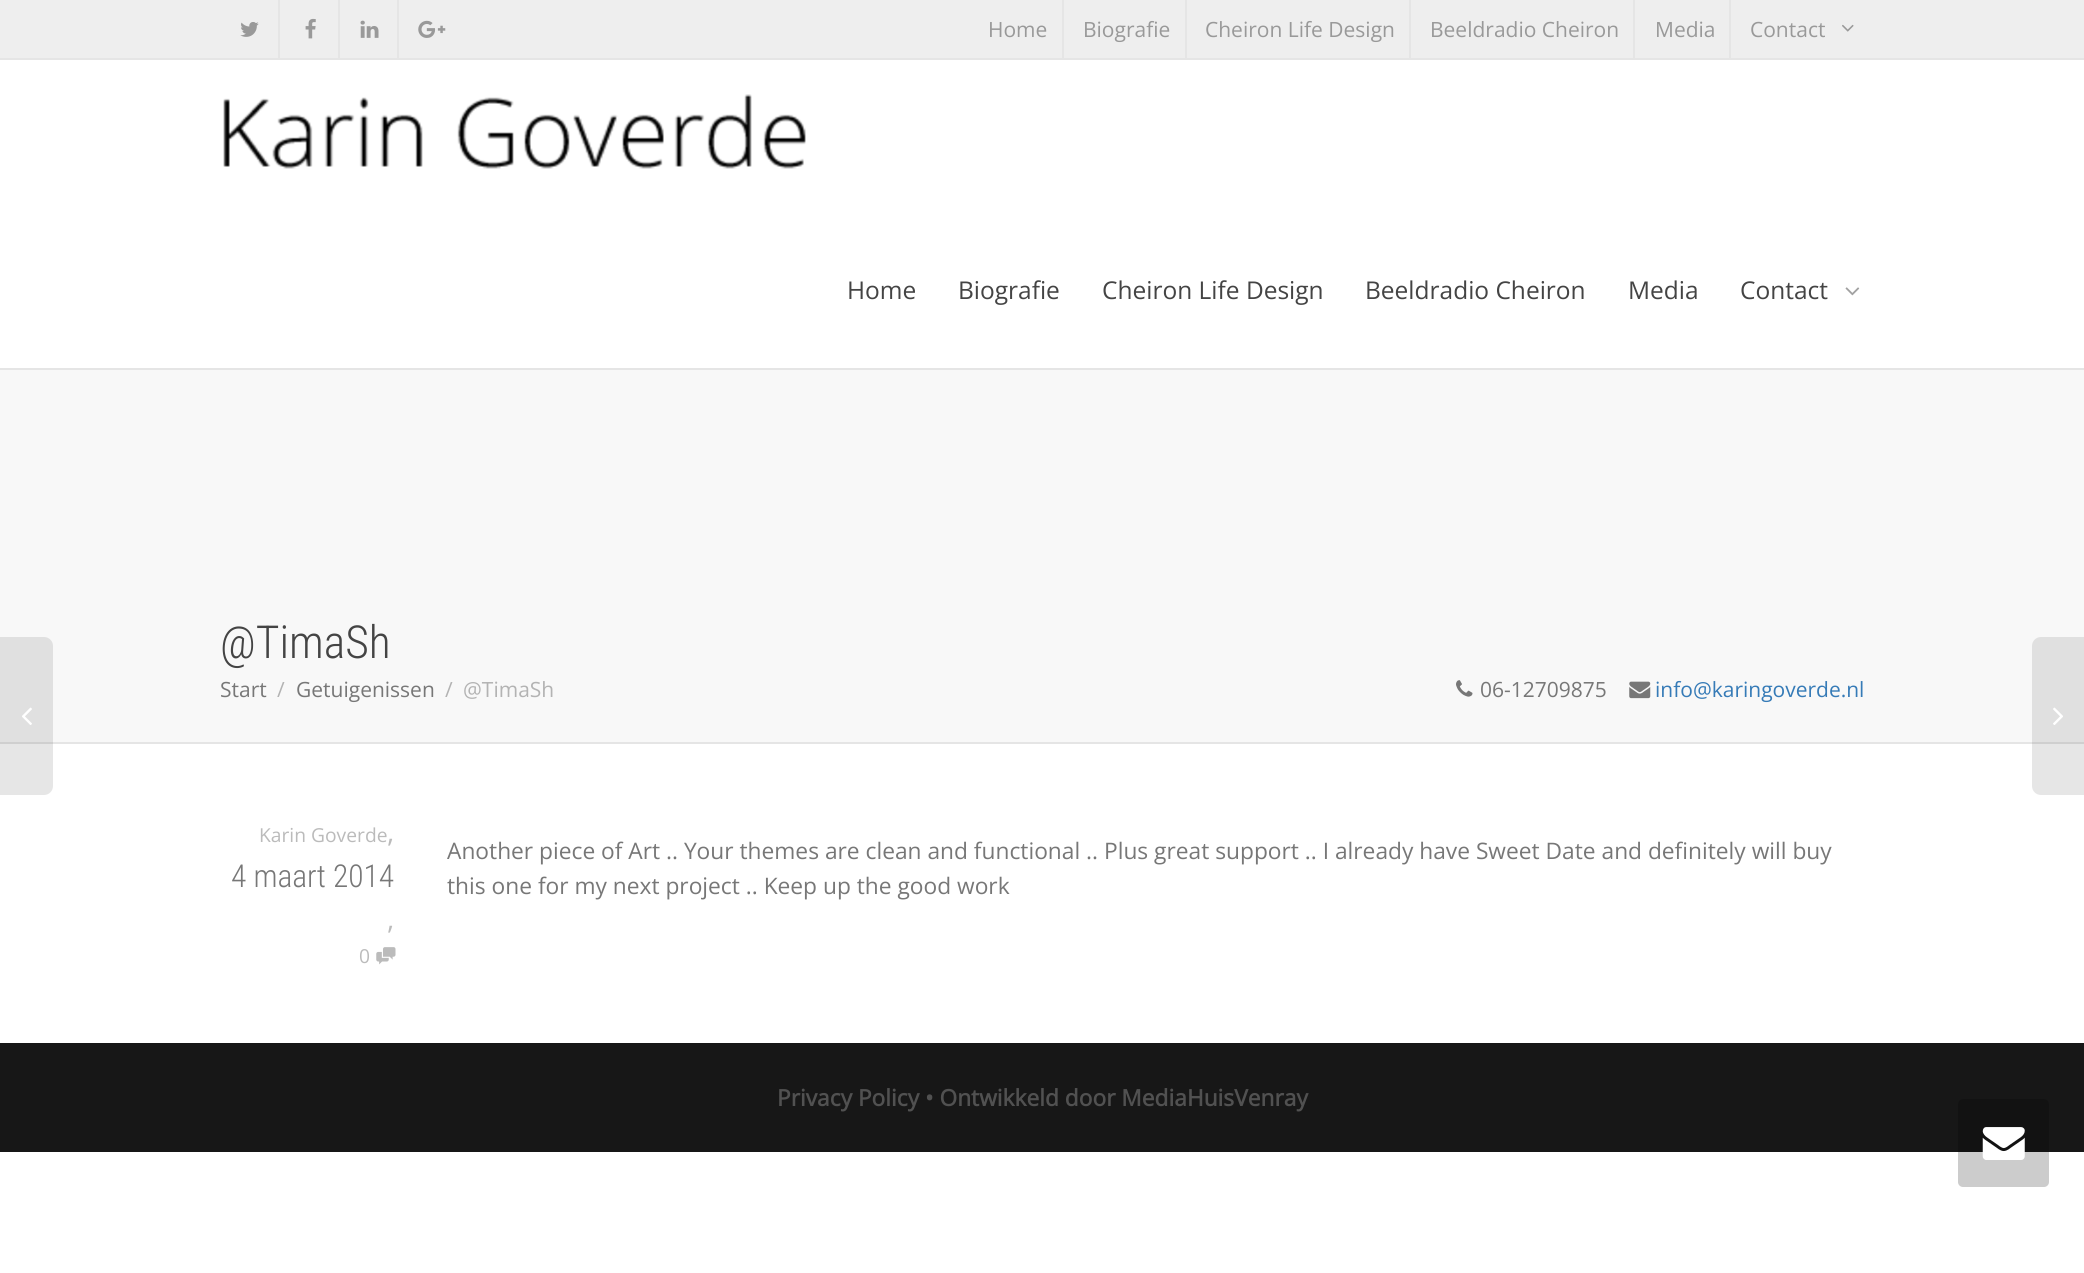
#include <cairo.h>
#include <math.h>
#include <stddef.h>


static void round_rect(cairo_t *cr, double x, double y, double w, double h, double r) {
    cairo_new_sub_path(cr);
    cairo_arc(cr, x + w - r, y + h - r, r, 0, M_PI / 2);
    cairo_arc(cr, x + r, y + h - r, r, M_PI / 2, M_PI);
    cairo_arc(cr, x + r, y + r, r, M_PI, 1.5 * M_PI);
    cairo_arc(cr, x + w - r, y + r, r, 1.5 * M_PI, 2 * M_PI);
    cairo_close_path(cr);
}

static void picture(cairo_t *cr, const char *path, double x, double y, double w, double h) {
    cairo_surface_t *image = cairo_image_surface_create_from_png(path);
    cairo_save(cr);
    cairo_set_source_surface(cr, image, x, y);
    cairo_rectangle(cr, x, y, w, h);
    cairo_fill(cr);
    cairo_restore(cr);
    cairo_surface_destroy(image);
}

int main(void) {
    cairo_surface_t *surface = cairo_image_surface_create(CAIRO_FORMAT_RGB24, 2084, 1273);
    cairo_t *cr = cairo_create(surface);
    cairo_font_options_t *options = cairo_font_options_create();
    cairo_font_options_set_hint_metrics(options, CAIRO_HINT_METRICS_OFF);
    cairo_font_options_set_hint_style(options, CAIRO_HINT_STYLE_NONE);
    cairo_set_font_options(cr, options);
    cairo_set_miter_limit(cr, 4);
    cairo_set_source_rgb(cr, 1, 1, 1);
    cairo_paint(cr);
    cairo_set_source_rgb(cr, 0.933, 0.933, 0.933);
    cairo_rectangle(cr, 0, 0, 2084, 58);
    cairo_fill(cr);
    cairo_set_source_rgb(cr, 0.898, 0.898, 0.898);
    cairo_rectangle(cr, 0, 58, 2084, 2);
    cairo_fill(cr);
    cairo_rectangle(cr, 278, 0, 2, 58);
    cairo_fill(cr);
    picture(cr, "img1.png", 240, 22, 19, 15);
    cairo_rectangle(cr, 338, 0, 2, 58);
    cairo_fill(cr);
    picture(cr, "img2.png", 305, 18, 11, 21);
    cairo_rectangle(cr, 397, 0, 2, 58);
    cairo_fill(cr);
    picture(cr, "img3.png", 360, 20, 19, 18);
    picture(cr, "img4.png", 418, 20, 28, 18);
    cairo_rectangle(cr, 1062, 0, 2, 58);
    cairo_fill(cr);
    cairo_select_font_face(cr, "Open Sans", CAIRO_FONT_SLANT_NORMAL, CAIRO_FONT_WEIGHT_NORMAL);
    cairo_set_font_size(cr, 21);
    cairo_set_source_rgb(cr, 0.6, 0.6, 0.6);
    cairo_move_to(cr, 988, 37);
    cairo_show_text(cr, "Home");
    cairo_set_source_rgb(cr, 0.898, 0.898, 0.898);
    cairo_rectangle(cr, 1185, 0, 2, 58);
    cairo_fill(cr);
    cairo_set_source_rgb(cr, 0.6, 0.6, 0.6);
    cairo_move_to(cr, 1083, 37);
    cairo_show_text(cr, "Biografie");
    cairo_set_source_rgb(cr, 0.898, 0.898, 0.898);
    cairo_rectangle(cr, 1409, 0, 2, 58);
    cairo_fill(cr);
    cairo_set_source_rgb(cr, 0.6, 0.6, 0.6);
    cairo_move_to(cr, 1205, 37);
    cairo_show_text(cr, "Cheiron Life Design");
    cairo_set_source_rgb(cr, 0.898, 0.898, 0.898);
    cairo_rectangle(cr, 1633, 0, 2, 58);
    cairo_fill(cr);
    cairo_set_source_rgb(cr, 0.6, 0.6, 0.6);
    cairo_move_to(cr, 1430, 37);
    cairo_show_text(cr, "Beeldradio Cheiron");
    cairo_set_source_rgb(cr, 0.898, 0.898, 0.898);
    cairo_rectangle(cr, 1729, 0, 2, 58);
    cairo_fill(cr);
    cairo_set_source_rgb(cr, 0.6, 0.6, 0.6);
    cairo_move_to(cr, 1655, 37);
    cairo_show_text(cr, "Media");
    cairo_move_to(cr, 1750, 37);
    cairo_show_text(cr, "Contact");
    picture(cr, "img5.png", 1842, 24, 12, 8);
    cairo_set_source_rgb(cr, 0.898, 0.898, 0.898);
    cairo_rectangle(cr, 0, 368, 2084, 2);
    cairo_fill(cr);
    picture(cr, "img6.png", 223, 94, 583, 75);
    cairo_set_font_size(cr, 24.5);
    cairo_set_source_rgb(cr, 0.267, 0.267, 0.267);
    cairo_move_to(cr, 847, 299);
    cairo_show_text(cr, "Home");
    cairo_move_to(cr, 958, 299);
    cairo_show_text(cr, "Biografie");
    cairo_move_to(cr, 1102, 299);
    cairo_show_text(cr, "Cheiron Life Design");
    cairo_move_to(cr, 1365, 299);
    cairo_show_text(cr, "Beeldradio Cheiron");
    cairo_move_to(cr, 1628, 299);
    cairo_show_text(cr, "Media");
    cairo_move_to(cr, 1740, 299);
    cairo_show_text(cr, "Contact");
    picture(cr, "img7.png", 1845, 287, 15, 9);
    cairo_set_source_rgb(cr, 0.969, 0.969, 0.969);
    cairo_rectangle(cr, 0, 370, 2084, 372);
    cairo_fill(cr);
    cairo_set_source_rgb(cr, 0.898, 0.898, 0.898);
    cairo_rectangle(cr, 0, 742, 2084, 2);
    cairo_fill(cr);
    cairo_select_font_face(cr, "Roboto Condensed Light", CAIRO_FONT_SLANT_NORMAL, CAIRO_FONT_WEIGHT_NORMAL);
    cairo_set_font_size(cr, 45.5);
    cairo_set_source_rgb(cr, 0.267, 0.267, 0.267);
    cairo_move_to(cr, 220, 658);
    cairo_show_text(cr, "@TimaSh");
    cairo_select_font_face(cr, "Open Sans", CAIRO_FONT_SLANT_NORMAL, CAIRO_FONT_WEIGHT_NORMAL);
    cairo_set_font_size(cr, 21);
    cairo_set_source_rgb(cr, 0.467, 0.467, 0.467);
    cairo_move_to(cr, 220, 697);
    cairo_show_text(cr, "Start");
    cairo_set_source_rgb(cr, 0.702, 0.702, 0.702);
    cairo_move_to(cr, 277, 697);
    cairo_show_text(cr, "/");
    cairo_set_source_rgb(cr, 0.467, 0.467, 0.467);
    cairo_move_to(cr, 296, 697);
    cairo_show_text(cr, "Getuigenissen");
    cairo_set_source_rgb(cr, 0.702, 0.702, 0.702);
    cairo_move_to(cr, 445, 697);
    cairo_show_text(cr, "/");
    cairo_move_to(cr, 463, 697);
    cairo_show_text(cr, "@TimaSh");
    picture(cr, "img8.png", 1456, 680, 17, 17);
    cairo_set_source_rgb(cr, 0.467, 0.467, 0.467);
    cairo_move_to(cr, 1480, 697);
    cairo_show_text(cr, "06-12709875");
    picture(cr, "img9.png", 1629, 681, 22, 18);
    cairo_set_source_rgb(cr, 0.212, 0.482, 0.718);
    cairo_move_to(cr, 1655, 697);
    cairo_show_text(cr, "info@karingoverde.nl");
    cairo_set_source_rgba(cr, 0, 0, 0, 0.1);
    cairo_new_path(cr);
    cairo_move_to(cr, -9, 637);
    cairo_line_to(cr, 44, 637);
    cairo_curve_to(cr, 49, 637, 53, 641, 53, 646);
    cairo_line_to(cr, 53, 786);
    cairo_curve_to(cr, 53, 791, 49, 795, 44, 795);
    cairo_line_to(cr, -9, 795);
    cairo_close_path(cr);
    cairo_fill(cr);
    picture(cr, "img10.png", 22, 707, 10, 18);
    cairo_new_path(cr);
    cairo_move_to(cr, 2041, 637);
    cairo_line_to(cr, 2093, 637);
    cairo_line_to(cr, 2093, 795);
    cairo_line_to(cr, 2041, 795);
    cairo_curve_to(cr, 2036, 795, 2032, 791, 2032, 786);
    cairo_line_to(cr, 2032, 646);
    cairo_curve_to(cr, 2032, 641, 2036, 637, 2041, 637);
    cairo_close_path(cr);
    cairo_fill(cr);
    picture(cr, "img11.png", 2053, 707, 10, 18);
    cairo_set_font_size(cr, 19.25);
    cairo_set_source_rgb(cr, 0.733, 0.733, 0.733);
    cairo_move_to(cr, 259, 842);
    cairo_show_text(cr, "Karin Goverde");
    cairo_set_font_size(cr, 28);
    cairo_move_to(cr, 387, 842);
    cairo_show_text(cr, ",");
    cairo_select_font_face(cr, "Roboto Condensed Light", CAIRO_FONT_SLANT_NORMAL, CAIRO_FONT_WEIGHT_NORMAL);
    cairo_set_font_size(cr, 31.5);
    cairo_set_source_rgb(cr, 0.467, 0.467, 0.467);
    cairo_move_to(cr, 231, 887);
    cairo_show_text(cr, "4 maart 2014");
    cairo_select_font_face(cr, "Open Sans", CAIRO_FONT_SLANT_NORMAL, CAIRO_FONT_WEIGHT_NORMAL);
    cairo_set_font_size(cr, 28);
    cairo_set_source_rgb(cr, 0.733, 0.733, 0.733);
    cairo_move_to(cr, 387, 929);
    cairo_show_text(cr, ",");
    cairo_set_font_size(cr, 19.25);
    cairo_move_to(cr, 359, 963);
    cairo_show_text(cr, "0");
    picture(cr, "img12.png", 376, 947, 20, 18);
    cairo_set_font_size(cr, 22.75);
    cairo_set_source_rgb(cr, 0.467, 0.467, 0.467);
    cairo_move_to(cr, 447, 859);
    cairo_show_text(cr, "Another piece of Art .. Your themes are clean and functional .. Plus great support .. I already have Sweet Date and definitely will buy");
    cairo_move_to(cr, 447, 894);
    cairo_show_text(cr, "this one for my next project .. Keep up the good work");
    cairo_set_source_rgb(cr, 0.09, 0.09, 0.09);
    cairo_rectangle(cr, 0, 1043, 2084, 109);
    cairo_fill(cr);
    cairo_select_font_face(cr, "Open Sans", CAIRO_FONT_SLANT_NORMAL, CAIRO_FONT_WEIGHT_BOLD);
    cairo_set_source_rgb(cr, 0.318, 0.318, 0.318);
    cairo_move_to(cr, 777, 1106);
    cairo_show_text(cr, "Privacy Policy • Ontwikkeld door MediaHuisVenray");
    cairo_set_source_rgba(cr, 0, 0, 0, 0.2);
    round_rect(cr, 1958, 1099, 91, 88, 5);
    cairo_fill(cr);
    picture(cr, "img13.png", 1982, 1127, 43, 33);
    cairo_surface_write_to_png(surface, "page.png");
    cairo_font_options_destroy(options);
    cairo_destroy(cr);
    cairo_surface_destroy(surface);
    return 0;
}
